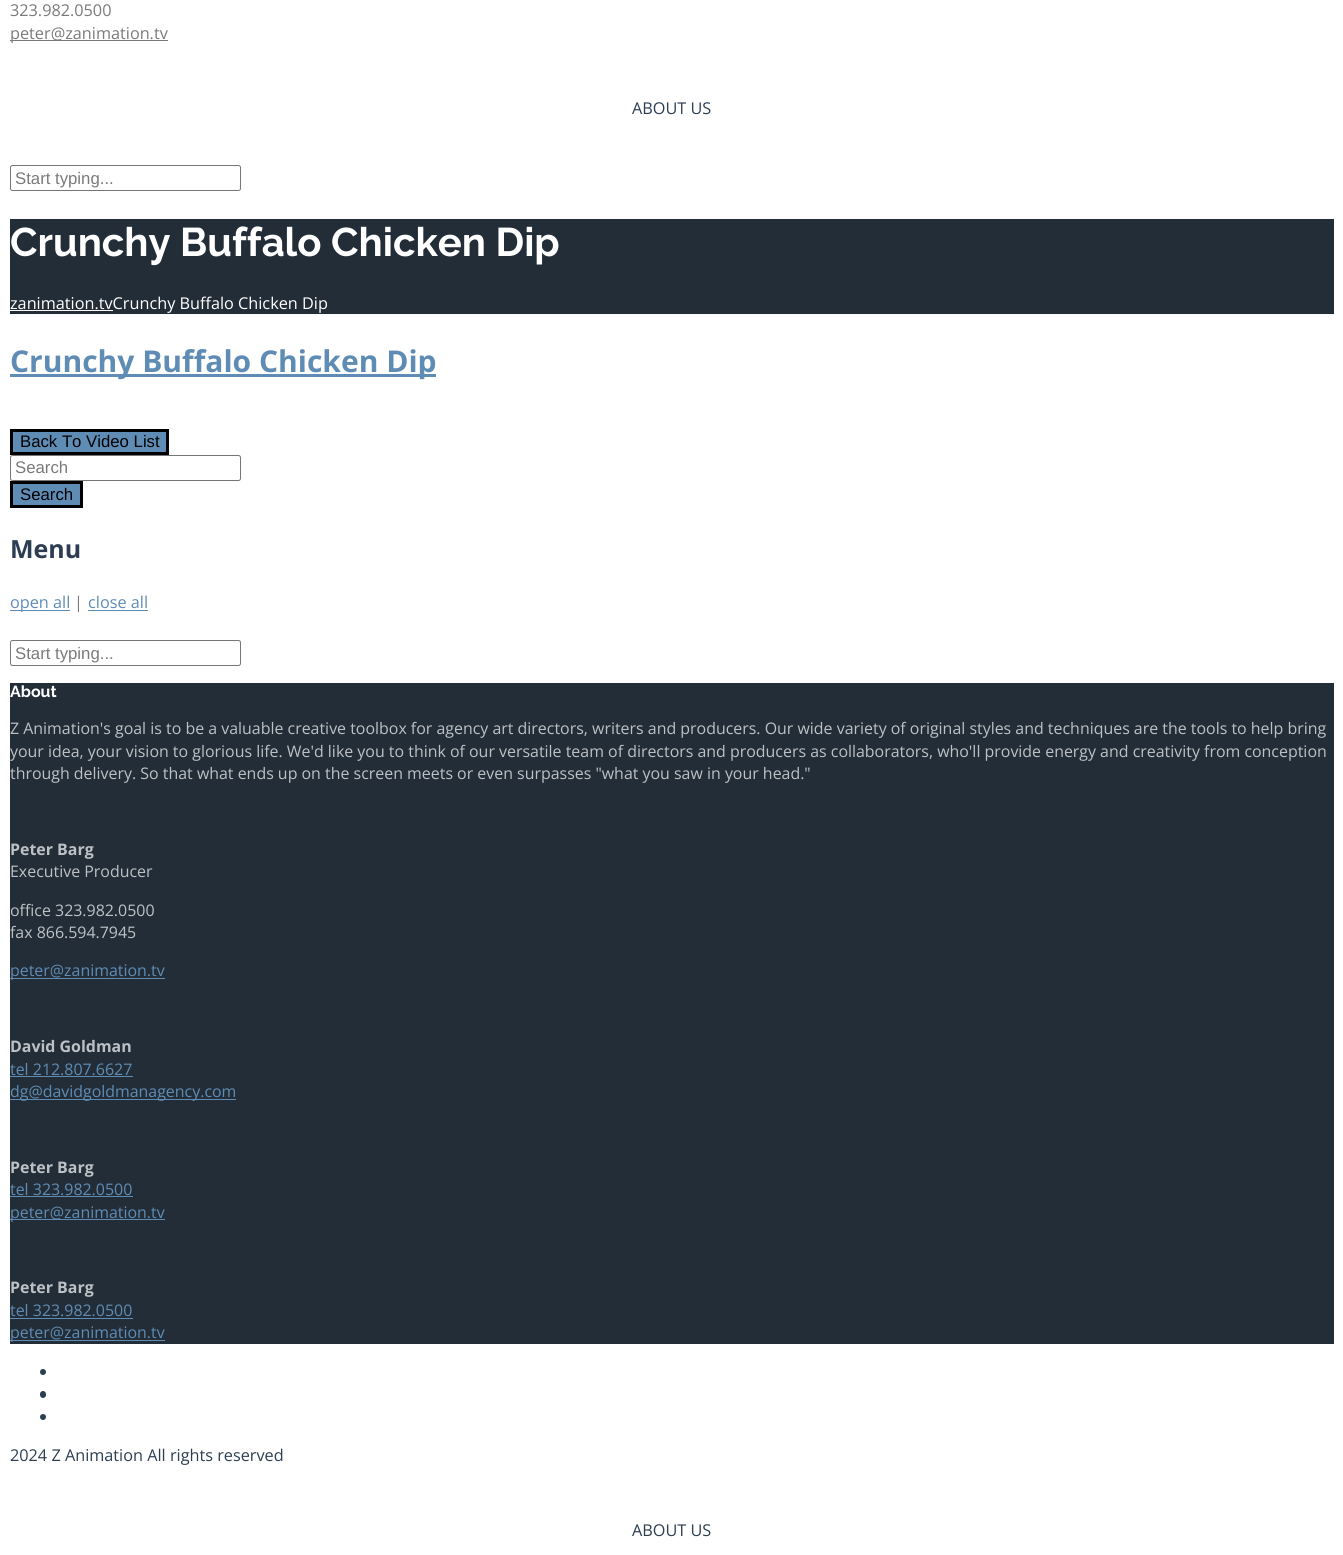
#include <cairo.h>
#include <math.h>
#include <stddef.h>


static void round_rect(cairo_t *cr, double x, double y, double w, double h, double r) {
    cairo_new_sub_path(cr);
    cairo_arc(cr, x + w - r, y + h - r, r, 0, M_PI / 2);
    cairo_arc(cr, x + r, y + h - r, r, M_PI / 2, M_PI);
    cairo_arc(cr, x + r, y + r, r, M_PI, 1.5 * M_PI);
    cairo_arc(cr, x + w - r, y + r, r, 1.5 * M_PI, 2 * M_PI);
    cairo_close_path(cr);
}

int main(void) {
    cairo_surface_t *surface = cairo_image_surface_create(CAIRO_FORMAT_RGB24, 1343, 1555);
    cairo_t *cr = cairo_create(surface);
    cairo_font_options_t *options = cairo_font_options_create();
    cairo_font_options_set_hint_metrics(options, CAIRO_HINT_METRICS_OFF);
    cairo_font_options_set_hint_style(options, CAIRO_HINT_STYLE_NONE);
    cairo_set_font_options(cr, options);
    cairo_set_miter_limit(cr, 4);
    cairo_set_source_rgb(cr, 1, 1, 1);
    cairo_paint(cr);
    cairo_select_font_face(cr, "Open Sans", CAIRO_FONT_SLANT_NORMAL, CAIRO_FONT_WEIGHT_NORMAL);
    cairo_set_font_size(cr, 16.25);
    cairo_set_source_rgb(cr, 0.478, 0.478, 0.478);
    cairo_move_to(cr, 10, 16);
    cairo_show_text(cr, "323.982.0500");
    cairo_rectangle(cr, 10, 40, 158, 1);
    cairo_fill(cr);
    cairo_move_to(cr, 10, 39);
    cairo_show_text(cr, "peter@zanimation.tv");
    cairo_set_source_rgb(cr, 0.176, 0.243, 0.322);
    cairo_move_to(cr, 632, 114);
    cairo_show_text(cr, "ABOUT US");
    round_rect(cr, 10.5, 165.5, 230, 25, 2);
    cairo_set_source_rgb(cr, 0.463, 0.463, 0.463);
    cairo_set_line_width(cr, 1);
    cairo_stroke(cr);
    cairo_select_font_face(cr, "Liberation Sans", CAIRO_FONT_SLANT_NORMAL, CAIRO_FONT_WEIGHT_NORMAL);
    cairo_set_font_size(cr, 16.75);
    cairo_set_source_rgb(cr, 0.478, 0.478, 0.478);
    cairo_move_to(cr, 15, 184);
    cairo_show_text(cr, "Start typing...");
    cairo_set_source_rgb(cr, 0.137, 0.176, 0.216);
    cairo_rectangle(cr, 10, 219, 1324, 95);
    cairo_fill(cr);
    cairo_select_font_face(cr, "Raleway", CAIRO_FONT_SLANT_NORMAL, CAIRO_FONT_WEIGHT_BOLD);
    cairo_set_font_size(cr, 40);
    cairo_set_source_rgb(cr, 1, 1, 1);
    cairo_move_to(cr, 10, 256);
    cairo_show_text(cr, "Crunchy Buffalo Chicken Dip");
    cairo_rectangle(cr, 10, 310, 103, 1);
    cairo_fill(cr);
    cairo_select_font_face(cr, "Open Sans", CAIRO_FONT_SLANT_NORMAL, CAIRO_FONT_WEIGHT_NORMAL);
    cairo_set_font_size(cr, 16.25);
    cairo_move_to(cr, 10, 309);
    cairo_show_text(cr, "zanimation.tvCrunchy Buffalo Chicken Dip");
    cairo_set_source_rgb(cr, 0.373, 0.549, 0.706);
    cairo_rectangle(cr, 10, 374, 426, 3);
    cairo_fill(cr);
    cairo_select_font_face(cr, "Open Sans", CAIRO_FONT_SLANT_NORMAL, CAIRO_FONT_WEIGHT_BOLD);
    cairo_set_font_size(cr, 30);
    cairo_move_to(cr, 10, 372);
    cairo_show_text(cr, "Crunchy Buffalo Chicken Dip");
    cairo_rectangle(cr, 11.5, 430.5, 156, 23);
    cairo_fill_preserve(cr);
    cairo_set_source_rgb(cr, 0, 0, 0);
    cairo_set_line_width(cr, 3);
    cairo_stroke(cr);
    cairo_select_font_face(cr, "Liberation Sans", CAIRO_FONT_SLANT_NORMAL, CAIRO_FONT_WEIGHT_NORMAL);
    cairo_set_font_size(cr, 16.75);
    cairo_move_to(cr, 20, 447);
    cairo_show_text(cr, "Back To Video List");
    round_rect(cr, 10.5, 455.5, 230, 25, 2);
    cairo_set_source_rgb(cr, 0.463, 0.463, 0.463);
    cairo_set_line_width(cr, 1);
    cairo_stroke(cr);
    cairo_set_source_rgb(cr, 0.478, 0.478, 0.478);
    cairo_move_to(cr, 15, 473);
    cairo_show_text(cr, "Search");
    cairo_set_source_rgb(cr, 0.373, 0.549, 0.706);
    cairo_rectangle(cr, 11.5, 482.5, 70, 24);
    cairo_fill_preserve(cr);
    cairo_set_source_rgb(cr, 0, 0, 0);
    cairo_set_line_width(cr, 3);
    cairo_stroke(cr);
    cairo_move_to(cr, 20, 500);
    cairo_show_text(cr, "Search");
    cairo_select_font_face(cr, "Open Sans", CAIRO_FONT_SLANT_NORMAL, CAIRO_FONT_WEIGHT_BOLD);
    cairo_set_font_size(cr, 25);
    cairo_set_source_rgb(cr, 0.176, 0.243, 0.322);
    cairo_move_to(cr, 10, 558);
    cairo_show_text(cr, "Menu");
    cairo_set_source_rgb(cr, 0.373, 0.549, 0.706);
    cairo_rectangle(cr, 10, 610, 60, 1);
    cairo_fill(cr);
    cairo_select_font_face(cr, "Open Sans", CAIRO_FONT_SLANT_NORMAL, CAIRO_FONT_WEIGHT_NORMAL);
    cairo_set_font_size(cr, 16.25);
    cairo_move_to(cr, 10, 608);
    cairo_show_text(cr, "open all");
    cairo_set_source_rgb(cr, 0.478, 0.478, 0.478);
    cairo_move_to(cr, 74, 608);
    cairo_show_text(cr, "|");
    cairo_set_source_rgb(cr, 0.373, 0.549, 0.706);
    cairo_move_to(cr, 88, 608);
    cairo_show_text(cr, "close all");
    cairo_rectangle(cr, 88, 610, 60, 1);
    cairo_fill(cr);
    round_rect(cr, 10.5, 640.5, 230, 25, 2);
    cairo_set_source_rgb(cr, 0.463, 0.463, 0.463);
    cairo_set_line_width(cr, 1);
    cairo_stroke(cr);
    cairo_select_font_face(cr, "Liberation Sans", CAIRO_FONT_SLANT_NORMAL, CAIRO_FONT_WEIGHT_NORMAL);
    cairo_set_font_size(cr, 16.75);
    cairo_set_source_rgb(cr, 0.478, 0.478, 0.478);
    cairo_move_to(cr, 15, 659);
    cairo_show_text(cr, "Start typing...");
    cairo_set_source_rgb(cr, 0.137, 0.176, 0.216);
    cairo_rectangle(cr, 10, 683, 1324, 661);
    cairo_fill(cr);
    cairo_select_font_face(cr, "Raleway", CAIRO_FONT_SLANT_NORMAL, CAIRO_FONT_WEIGHT_BOLD);
    cairo_set_font_size(cr, 16);
    cairo_set_source_rgb(cr, 1, 1, 1);
    cairo_move_to(cr, 10, 697);
    cairo_show_text(cr, "About");
    cairo_select_font_face(cr, "Open Sans", CAIRO_FONT_SLANT_NORMAL, CAIRO_FONT_WEIGHT_NORMAL);
    cairo_set_font_size(cr, 15.93);
    cairo_set_source_rgb(cr, 0.737, 0.757, 0.773);
    cairo_move_to(cr, 10, 734);
    cairo_show_text(cr, "Z Animation's goal is to be a valuable creative toolbox for agency art directors, writers and producers. Our wide variety of original styles and techniques are the tools to help bring");
    cairo_move_to(cr, 10, 757);
    cairo_show_text(cr, "your idea, your vision to glorious life. We'd like you to think of our versatile team of directors and producers as collaborators, who'll provide energy and creativity from conception");
    cairo_move_to(cr, 10, 779);
    cairo_show_text(cr, "through delivery. So that what ends up on the screen meets or even surpasses \"what you saw in your head.\"");
    cairo_select_font_face(cr, "Open Sans", CAIRO_FONT_SLANT_NORMAL, CAIRO_FONT_WEIGHT_BOLD);
    cairo_move_to(cr, 10, 855);
    cairo_show_text(cr, "Peter Barg");
    cairo_select_font_face(cr, "Open Sans", CAIRO_FONT_SLANT_NORMAL, CAIRO_FONT_WEIGHT_NORMAL);
    cairo_move_to(cr, 10, 877);
    cairo_show_text(cr, "Executive Producer");
    cairo_move_to(cr, 10, 916);
    cairo_show_text(cr, "office 323.982.0500");
    cairo_move_to(cr, 10, 938);
    cairo_show_text(cr, "fax 866.594.7945");
    cairo_set_source_rgb(cr, 0.373, 0.549, 0.706);
    cairo_rectangle(cr, 10, 978, 155, 1);
    cairo_fill(cr);
    cairo_move_to(cr, 10, 976);
    cairo_show_text(cr, "peter@zanimation.tv");
    cairo_select_font_face(cr, "Open Sans", CAIRO_FONT_SLANT_NORMAL, CAIRO_FONT_WEIGHT_BOLD);
    cairo_set_source_rgb(cr, 0.737, 0.757, 0.773);
    cairo_move_to(cr, 10, 1052);
    cairo_show_text(cr, "David Goldman");
    cairo_select_font_face(cr, "Open Sans", CAIRO_FONT_SLANT_NORMAL, CAIRO_FONT_WEIGHT_NORMAL);
    cairo_set_source_rgb(cr, 0.373, 0.549, 0.706);
    cairo_move_to(cr, 10, 1075);
    cairo_show_text(cr, "tel 212.807.6627");
    cairo_rectangle(cr, 10, 1076, 123, 1);
    cairo_fill(cr);
    cairo_rectangle(cr, 10, 1099, 226, 1);
    cairo_fill(cr);
    cairo_move_to(cr, 10, 1097);
    cairo_show_text(cr, "dg@davidgoldmanagency.com");
    cairo_select_font_face(cr, "Open Sans", CAIRO_FONT_SLANT_NORMAL, CAIRO_FONT_WEIGHT_BOLD);
    cairo_set_source_rgb(cr, 0.737, 0.757, 0.773);
    cairo_move_to(cr, 10, 1173);
    cairo_show_text(cr, "Peter Barg");
    cairo_select_font_face(cr, "Open Sans", CAIRO_FONT_SLANT_NORMAL, CAIRO_FONT_WEIGHT_NORMAL);
    cairo_set_source_rgb(cr, 0.373, 0.549, 0.706);
    cairo_move_to(cr, 10, 1195);
    cairo_show_text(cr, "tel 323.982.0500");
    cairo_rectangle(cr, 10, 1196, 123, 1);
    cairo_fill(cr);
    cairo_rectangle(cr, 10, 1219, 155, 1);
    cairo_fill(cr);
    cairo_move_to(cr, 10, 1218);
    cairo_show_text(cr, "peter@zanimation.tv");
    cairo_select_font_face(cr, "Open Sans", CAIRO_FONT_SLANT_NORMAL, CAIRO_FONT_WEIGHT_BOLD);
    cairo_set_source_rgb(cr, 0.737, 0.757, 0.773);
    cairo_move_to(cr, 10, 1293);
    cairo_show_text(cr, "Peter Barg");
    cairo_select_font_face(cr, "Open Sans", CAIRO_FONT_SLANT_NORMAL, CAIRO_FONT_WEIGHT_NORMAL);
    cairo_set_source_rgb(cr, 0.373, 0.549, 0.706);
    cairo_move_to(cr, 10, 1316);
    cairo_show_text(cr, "tel 323.982.0500");
    cairo_rectangle(cr, 10, 1318, 123, 1);
    cairo_fill(cr);
    cairo_rectangle(cr, 10, 1340, 155, 1);
    cairo_fill(cr);
    cairo_move_to(cr, 10, 1338);
    cairo_show_text(cr, "peter@zanimation.tv");
    cairo_set_source_rgb(cr, 0.176, 0.243, 0.322);
    cairo_new_path(cr);
    cairo_arc(cr, 43, 1372, 3, 0, 2 * M_PI);
    cairo_fill(cr);
    round_rect(cr, 40, 1391, 6, 7, 3);
    cairo_fill(cr);
    cairo_arc(cr, 43, 1417, 3, 0, 2 * M_PI);
    cairo_fill(cr);
    cairo_set_font_size(cr, 16.25);
    cairo_move_to(cr, 10, 1461);
    cairo_show_text(cr, "2024 Z Animation All rights reserved");
    cairo_move_to(cr, 632, 1536);
    cairo_show_text(cr, "ABOUT US");
    cairo_surface_write_to_png(surface, "page.png");
    cairo_font_options_destroy(options);
    cairo_destroy(cr);
    cairo_surface_destroy(surface);
    return 0;
}
